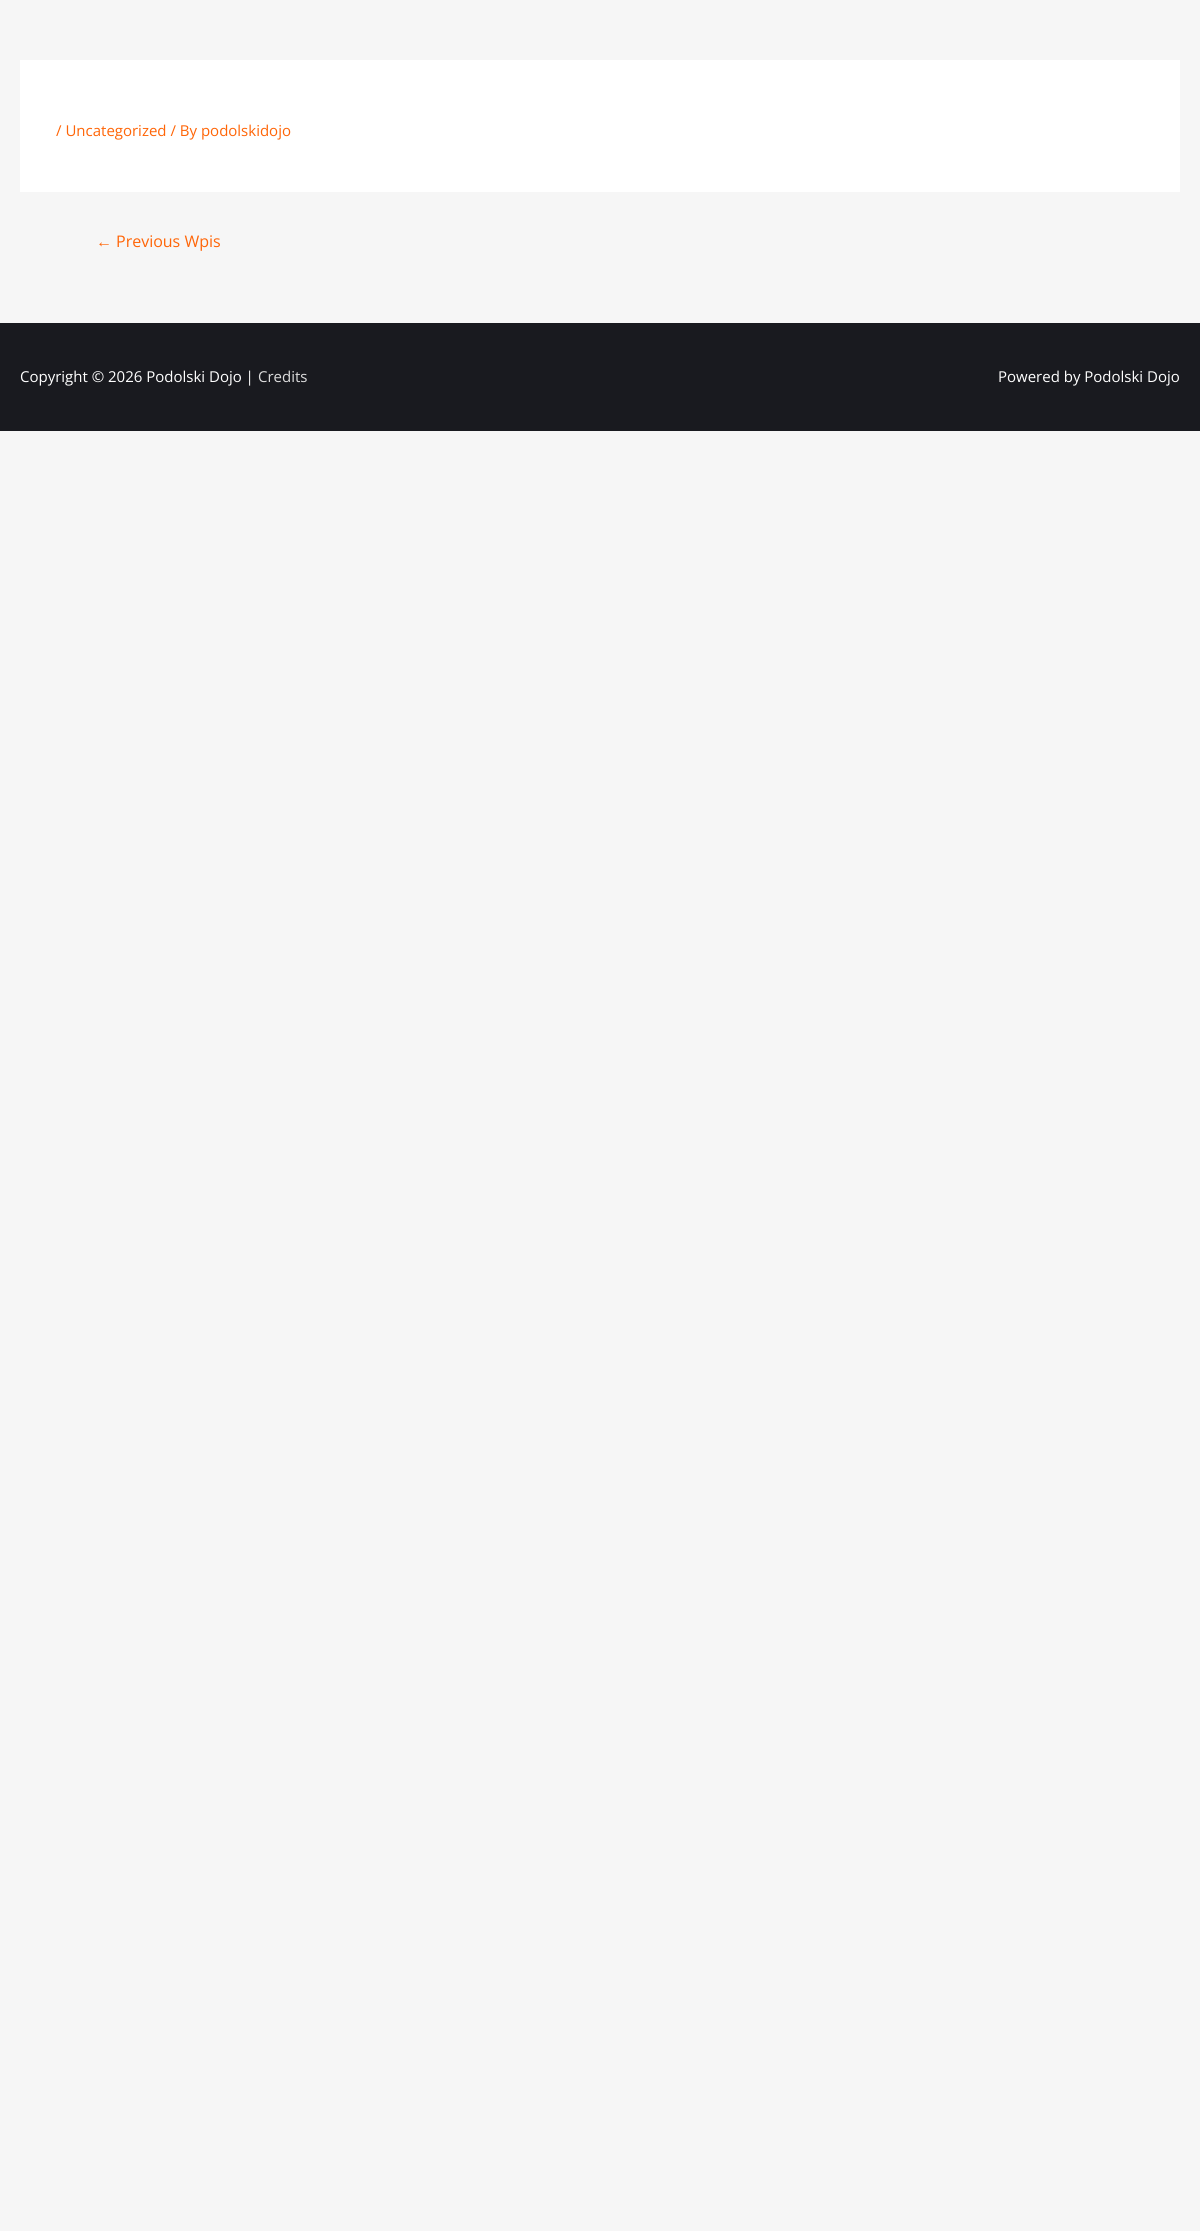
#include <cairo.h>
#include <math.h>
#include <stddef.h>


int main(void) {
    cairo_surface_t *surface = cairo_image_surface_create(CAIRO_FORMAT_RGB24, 1200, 2231);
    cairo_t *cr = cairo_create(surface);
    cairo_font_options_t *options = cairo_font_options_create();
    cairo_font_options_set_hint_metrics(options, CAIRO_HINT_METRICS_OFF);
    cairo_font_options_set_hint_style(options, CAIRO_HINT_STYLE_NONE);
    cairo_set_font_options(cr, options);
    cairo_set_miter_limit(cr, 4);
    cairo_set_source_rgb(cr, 0.961, 0.961, 0.961);
    cairo_paint(cr);
    cairo_set_source_rgb(cr, 1, 1, 1);
    cairo_rectangle(cr, 20, 60, 1160, 132);
    cairo_fill(cr);
    cairo_select_font_face(cr, "Open Sans", CAIRO_FONT_SLANT_NORMAL, CAIRO_FONT_WEIGHT_NORMAL);
    cairo_set_font_size(cr, 15);
    cairo_set_source_rgb(cr, 1, 0.396, 0.031);
    cairo_move_to(cr, 56, 136);
    cairo_show_text(cr, "/ Uncategorized / By podolskidojo");
    cairo_select_font_face(cr, "Liberation Sans", CAIRO_FONT_SLANT_NORMAL, CAIRO_FONT_WEIGHT_NORMAL);
    cairo_set_font_size(cr, 16);
    cairo_move_to(cr, 96, 247);
    cairo_show_text(cr, "←");
    cairo_select_font_face(cr, "Open Sans", CAIRO_FONT_SLANT_NORMAL, CAIRO_FONT_WEIGHT_NORMAL);
    cairo_move_to(cr, 116, 247);
    cairo_show_text(cr, "Previous Wpis");
    cairo_set_source_rgb(cr, 0.098, 0.102, 0.122);
    cairo_rectangle(cr, 0, 323, 1200, 108);
    cairo_fill(cr);
    cairo_set_font_size(cr, 15);
    cairo_set_source_rgb(cr, 1, 1, 1);
    cairo_move_to(cr, 20, 382);
    cairo_show_text(cr, "Copyright © 2026 Podolski Dojo |");
    cairo_set_source_rgb(cr, 0.867, 0.867, 0.867);
    cairo_move_to(cr, 258, 382);
    cairo_show_text(cr, "Credits");
    cairo_set_source_rgb(cr, 1, 1, 1);
    cairo_move_to(cr, 998, 382);
    cairo_show_text(cr, "Powered by Podolski Dojo");
    cairo_surface_write_to_png(surface, "page.png");
    cairo_font_options_destroy(options);
    cairo_destroy(cr);
    cairo_surface_destroy(surface);
    return 0;
}
